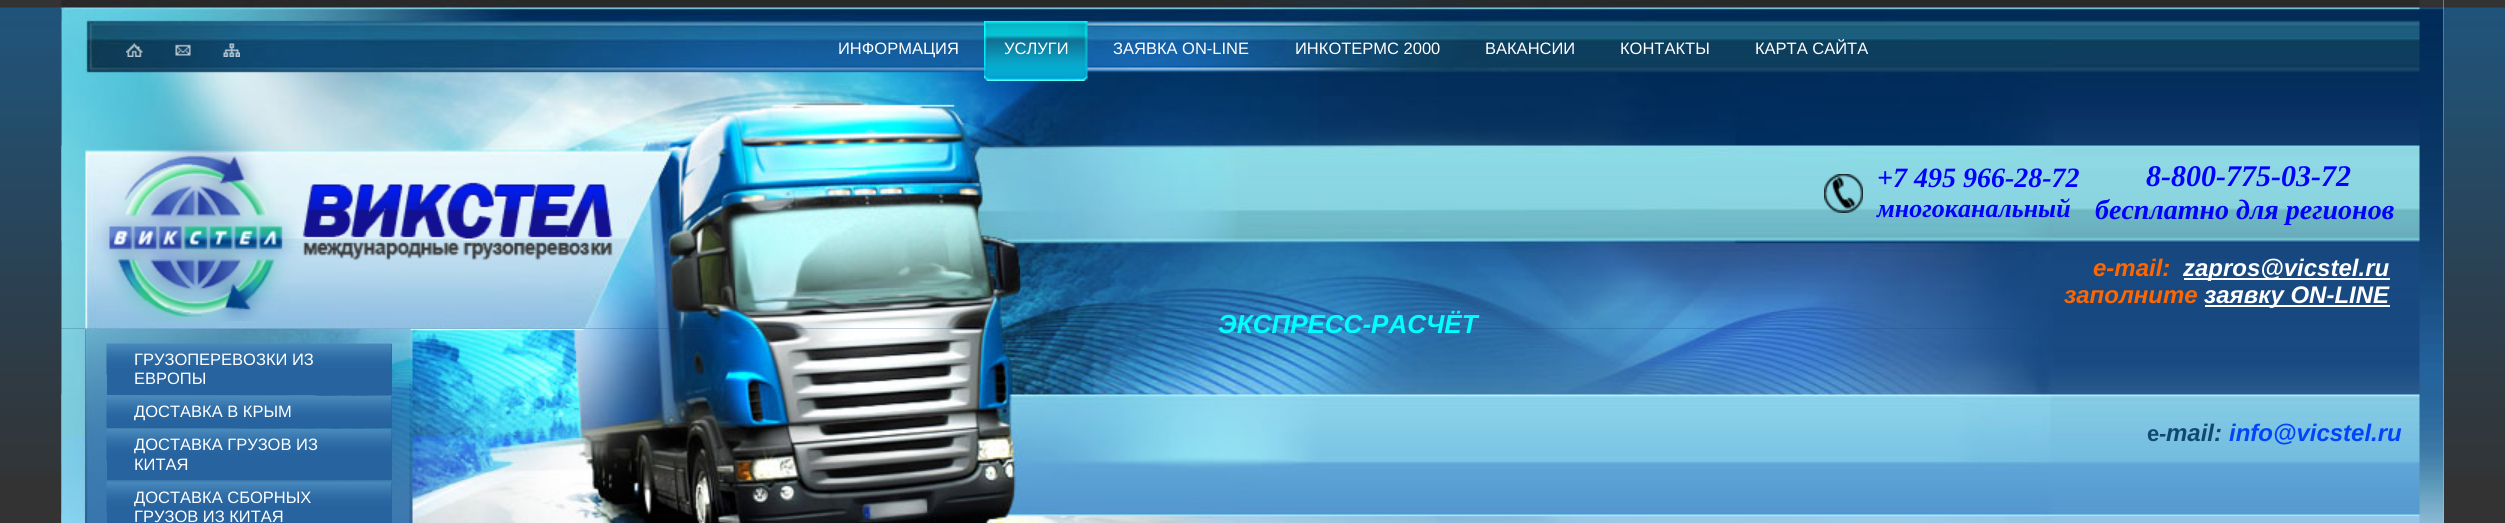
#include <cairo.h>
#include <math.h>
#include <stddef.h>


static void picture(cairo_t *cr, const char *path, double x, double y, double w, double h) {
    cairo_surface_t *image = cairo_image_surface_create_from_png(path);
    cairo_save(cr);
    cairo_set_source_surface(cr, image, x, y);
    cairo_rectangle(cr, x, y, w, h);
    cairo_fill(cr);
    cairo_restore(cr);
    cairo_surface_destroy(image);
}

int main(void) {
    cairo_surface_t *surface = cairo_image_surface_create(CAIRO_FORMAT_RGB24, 2505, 523);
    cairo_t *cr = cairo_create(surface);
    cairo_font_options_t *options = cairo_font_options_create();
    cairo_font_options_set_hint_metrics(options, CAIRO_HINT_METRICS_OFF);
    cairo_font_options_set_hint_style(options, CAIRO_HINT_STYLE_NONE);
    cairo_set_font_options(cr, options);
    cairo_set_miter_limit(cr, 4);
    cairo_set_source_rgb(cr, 0.2, 0.2, 0.2);
    cairo_paint(cr);
    picture(cr, "img1.png", 0, 7, 2505, 468);
    cairo_set_source_rgb(cr, 0.612, 0.796, 0.91);
    cairo_rectangle(cr, 2443, 0, 1, 523);
    cairo_fill(cr);
    picture(cr, "img2.png", 61, 0, 2383, 523);
    picture(cr, "img3.png", 61, 0, 2359, 523);
    picture(cr, "img4.png", 61, 328, 1993, 195);
    picture(cr, "img5.png", 85, 328, 326, 195);
    picture(cr, "img6.png", 85, 328, 326, 195);
    cairo_set_source_rgb(cr, 0.149, 0.388, 0.624);
    cairo_rectangle(cr, 107, 344, 285, 51);
    cairo_fill(cr);
    picture(cr, "img7.png", 106, 343, 286, 32);
    cairo_select_font_face(cr, "Liberation Sans", CAIRO_FONT_SLANT_NORMAL, CAIRO_FONT_WEIGHT_NORMAL);
    cairo_set_font_size(cr, 16.5);
    cairo_set_source_rgb(cr, 1, 1, 1);
    cairo_move_to(cr, 134, 365);
    cairo_show_text(cr, "ГРУЗОПЕРЕВОЗКИ ИЗ");
    cairo_move_to(cr, 134, 384);
    cairo_show_text(cr, "ЕВРОПЫ");
    cairo_set_source_rgb(cr, 0.149, 0.388, 0.624);
    cairo_rectangle(cr, 107, 396, 285, 32);
    cairo_fill(cr);
    picture(cr, "img8.png", 106, 396, 286, 32);
    cairo_set_source_rgb(cr, 1, 1, 1);
    cairo_move_to(cr, 134, 417);
    cairo_show_text(cr, "ДОСТАВКА В КРЫМ");
    cairo_set_source_rgb(cr, 0.149, 0.388, 0.624);
    cairo_rectangle(cr, 107, 429, 285, 51);
    cairo_fill(cr);
    picture(cr, "img9.png", 106, 429, 286, 32);
    cairo_set_source_rgb(cr, 1, 1, 1);
    cairo_move_to(cr, 134, 450);
    cairo_show_text(cr, "ДОСТАВКА ГРУЗОВ ИЗ");
    cairo_move_to(cr, 134, 470);
    cairo_show_text(cr, "КИТАЯ");
    cairo_set_source_rgb(cr, 0.149, 0.388, 0.624);
    cairo_rectangle(cr, 107, 482, 285, 41);
    cairo_fill(cr);
    picture(cr, "img10.png", 106, 481, 286, 32);
    cairo_set_source_rgb(cr, 1, 1, 1);
    cairo_move_to(cr, 134, 503);
    cairo_show_text(cr, "ДОСТАВКА СБОРНЫХ");
    cairo_move_to(cr, 134, 522);
    cairo_show_text(cr, "ГРУЗОВ ИЗ КИТАЯ");
    picture(cr, "img11.png", 61, 0, 1992, 329);
    picture(cr, "img12.png", 126, 43, 17, 14);
    picture(cr, "img13.png", 175, 44, 16, 12);
    picture(cr, "img14.png", 223, 43, 17, 14);
    cairo_move_to(cr, 838, 54);
    cairo_show_text(cr, "ИНФОРМАЦИЯ");
    picture(cr, "img15.png", 1068, 21, 20, 60);
    picture(cr, "img16.png", 984, 21, 84, 60);
    cairo_move_to(cr, 1004, 54);
    cairo_show_text(cr, "УСЛУГИ");
    cairo_move_to(cr, 1113, 54);
    cairo_show_text(cr, "ЗАЯВКА ON-LINE");
    cairo_move_to(cr, 1295, 54);
    cairo_show_text(cr, "ИНКОТЕРМС 2000");
    cairo_move_to(cr, 1485, 54);
    cairo_show_text(cr, "ВАКАНСИИ");
    cairo_move_to(cr, 1620, 54);
    cairo_show_text(cr, "КОНТАКТЫ");
    cairo_move_to(cr, 1755, 54);
    cairo_show_text(cr, "КАРТА САЙТА");
    picture(cr, "img17.png", 93, 150, 520, 171);
    picture(cr, "img18.png", 1824, 174, 39, 39);
    cairo_select_font_face(cr, "Liberation Serif", CAIRO_FONT_SLANT_ITALIC, CAIRO_FONT_WEIGHT_BOLD);
    cairo_set_font_size(cr, 28);
    cairo_set_source_rgb(cr, 0, 0, 1);
    cairo_move_to(cr, 1877, 187);
    cairo_show_text(cr, "+7 495 966-28-72");
    cairo_set_font_size(cr, 26);
    cairo_move_to(cr, 1877, 217);
    cairo_show_text(cr, "многоканальный");
    cairo_set_font_size(cr, 30);
    cairo_move_to(cr, 2146, 186);
    cairo_show_text(cr, "8-800-775-03-72");
    cairo_set_font_size(cr, 28);
    cairo_move_to(cr, 2095, 219);
    cairo_show_text(cr, "бесплатно для регионов");
    cairo_select_font_face(cr, "Liberation Sans", CAIRO_FONT_SLANT_ITALIC, CAIRO_FONT_WEIGHT_BOLD);
    cairo_set_font_size(cr, 24);
    cairo_set_source_rgb(cr, 1, 0.4, 0);
    cairo_move_to(cr, 2093, 276);
    cairo_show_text(cr, "e-mail:");
    cairo_set_source_rgb(cr, 1, 1, 1);
    cairo_rectangle(cr, 2184, 278, 206, 2);
    cairo_fill(cr);
    cairo_move_to(cr, 2183, 276);
    cairo_show_text(cr, "zapros@vicstel.ru");
    cairo_set_source_rgb(cr, 1, 0.4, 0);
    cairo_move_to(cr, 2064, 303);
    cairo_show_text(cr, "заполните");
    cairo_set_source_rgb(cr, 1, 1, 1);
    cairo_rectangle(cr, 2205, 305, 185, 2);
    cairo_fill(cr);
    cairo_move_to(cr, 2204, 303);
    cairo_show_text(cr, "заявку ON-LINE");
    cairo_set_font_size(cr, 26);
    cairo_set_source_rgb(cr, 0, 1, 1);
    cairo_move_to(cr, 1218, 333);
    cairo_show_text(cr, "ЭКСПРЕСС-РАСЧЁТ");
    cairo_select_font_face(cr, "Liberation Sans", CAIRO_FONT_SLANT_NORMAL, CAIRO_FONT_WEIGHT_BOLD);
    cairo_set_font_size(cr, 22);
    cairo_set_source_rgb(cr, 0.063, 0.282, 0.431);
    cairo_move_to(cr, 2147, 441);
    cairo_show_text(cr, "e");
    cairo_select_font_face(cr, "Liberation Sans", CAIRO_FONT_SLANT_ITALIC, CAIRO_FONT_WEIGHT_BOLD);
    cairo_move_to(cr, 2159, 441);
    cairo_show_text(cr, "-");
    cairo_set_font_size(cr, 24);
    cairo_move_to(cr, 2166, 441);
    cairo_show_text(cr, "mail:");
    cairo_set_source_rgb(cr, 0.004, 0.271, 0.976);
    cairo_move_to(cr, 2229, 441);
    cairo_show_text(cr, "info@vicstel.ru");
    cairo_surface_write_to_png(surface, "page.png");
    cairo_font_options_destroy(options);
    cairo_destroy(cr);
    cairo_surface_destroy(surface);
    return 0;
}
